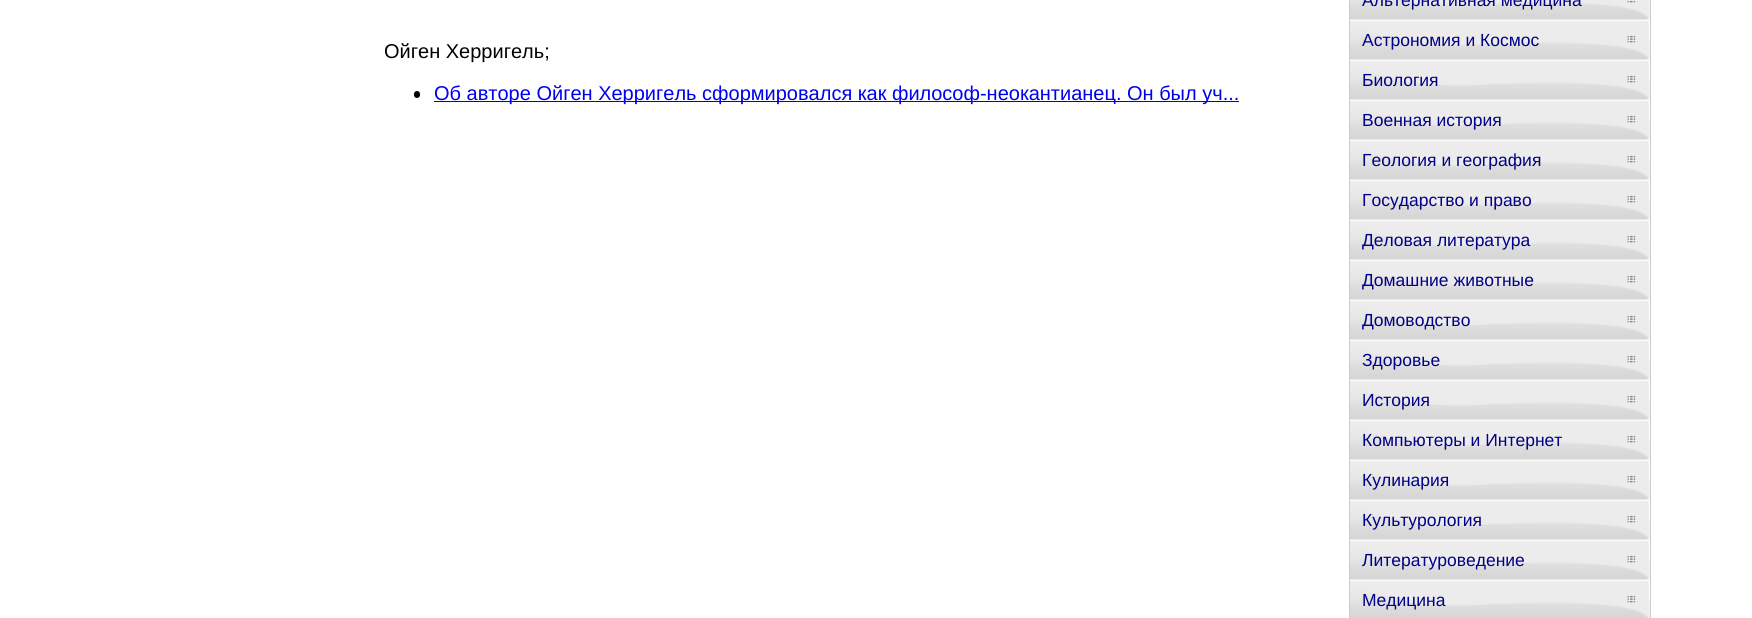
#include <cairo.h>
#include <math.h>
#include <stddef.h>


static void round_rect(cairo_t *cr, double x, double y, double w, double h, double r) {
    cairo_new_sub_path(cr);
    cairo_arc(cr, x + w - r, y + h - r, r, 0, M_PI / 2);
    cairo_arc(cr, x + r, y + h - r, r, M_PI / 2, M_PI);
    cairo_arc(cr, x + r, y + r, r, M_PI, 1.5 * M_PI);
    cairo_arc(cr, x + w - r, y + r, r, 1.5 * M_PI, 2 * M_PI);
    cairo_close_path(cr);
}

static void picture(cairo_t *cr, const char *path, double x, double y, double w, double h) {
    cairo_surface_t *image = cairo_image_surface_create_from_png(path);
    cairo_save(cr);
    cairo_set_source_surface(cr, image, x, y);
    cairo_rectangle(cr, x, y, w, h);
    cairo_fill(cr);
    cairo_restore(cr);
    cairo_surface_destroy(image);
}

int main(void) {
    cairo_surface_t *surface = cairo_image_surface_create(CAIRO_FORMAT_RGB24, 1752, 618);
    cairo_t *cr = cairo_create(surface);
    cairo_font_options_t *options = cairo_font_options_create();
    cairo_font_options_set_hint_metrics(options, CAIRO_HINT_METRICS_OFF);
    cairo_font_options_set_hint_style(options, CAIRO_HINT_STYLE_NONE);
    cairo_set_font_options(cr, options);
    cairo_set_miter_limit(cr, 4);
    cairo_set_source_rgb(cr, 1, 1, 1);
    cairo_paint(cr);
    cairo_select_font_face(cr, "Liberation Sans", CAIRO_FONT_SLANT_NORMAL, CAIRO_FONT_WEIGHT_NORMAL);
    cairo_set_font_size(cr, 20);
    cairo_set_source_rgb(cr, 0, 0, 0);
    cairo_move_to(cr, 384, 58);
    cairo_show_text(cr, "Ойген Херригель;");
    round_rect(cr, 414, 91, 6, 7, 3);
    cairo_fill(cr);
    cairo_set_source_rgb(cr, 0, 0, 0.933);
    cairo_rectangle(cr, 434, 101, 805, 1);
    cairo_fill(cr);
    cairo_move_to(cr, 434, 100);
    cairo_show_text(cr, "Об авторе Ойген Херригель сформировался как философ-неокантианец. Он был уч...");
    cairo_rectangle(cr, 1349.5, -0.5, 301, 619);
    cairo_set_source_rgb(cr, 0.8, 0.8, 0.8);
    cairo_set_line_width(cr, 1);
    cairo_stroke(cr);
    picture(cr, "img1.png", 1350, 0, 300, 20);
    cairo_set_font_size(cr, 17.5);
    cairo_set_source_rgb(cr, 0, 0, 0.533);
    cairo_move_to(cr, 1362, 6);
    cairo_show_text(cr, "Альтернативная медицина");
    picture(cr, "img2.png", 1350, 19, 300, 41);
    cairo_move_to(cr, 1362, 46);
    cairo_show_text(cr, "Астрономия и Космос");
    picture(cr, "img2.png", 1350, 59, 300, 41);
    cairo_move_to(cr, 1362, 86);
    cairo_show_text(cr, "Биология");
    picture(cr, "img2.png", 1350, 99, 300, 41);
    cairo_move_to(cr, 1362, 126);
    cairo_show_text(cr, "Военная история");
    picture(cr, "img2.png", 1350, 139, 300, 41);
    cairo_move_to(cr, 1362, 166);
    cairo_show_text(cr, "Геология и география");
    picture(cr, "img2.png", 1350, 179, 300, 41);
    cairo_move_to(cr, 1362, 206);
    cairo_show_text(cr, "Государство и право");
    picture(cr, "img2.png", 1350, 219, 300, 41);
    cairo_move_to(cr, 1362, 246);
    cairo_show_text(cr, "Деловая литература");
    picture(cr, "img3.png", 1350, 259, 300, 41);
    cairo_move_to(cr, 1362, 286);
    cairo_show_text(cr, "Домашние животные");
    picture(cr, "img2.png", 1350, 299, 300, 41);
    cairo_move_to(cr, 1362, 326);
    cairo_show_text(cr, "Домоводство");
    picture(cr, "img2.png", 1350, 339, 300, 41);
    cairo_move_to(cr, 1362, 366);
    cairo_show_text(cr, "Здоровье");
    picture(cr, "img2.png", 1350, 379, 300, 41);
    cairo_move_to(cr, 1362, 406);
    cairo_show_text(cr, "История");
    picture(cr, "img2.png", 1350, 419, 300, 41);
    cairo_move_to(cr, 1362, 446);
    cairo_show_text(cr, "Компьютеры и Интернет");
    picture(cr, "img2.png", 1350, 459, 300, 41);
    cairo_move_to(cr, 1362, 486);
    cairo_show_text(cr, "Кулинария");
    picture(cr, "img2.png", 1350, 499, 300, 41);
    cairo_move_to(cr, 1362, 526);
    cairo_show_text(cr, "Культурология");
    picture(cr, "img2.png", 1350, 539, 300, 41);
    cairo_move_to(cr, 1362, 566);
    cairo_show_text(cr, "Литературоведение");
    picture(cr, "img4.png", 1350, 579, 300, 39);
    cairo_move_to(cr, 1362, 606);
    cairo_show_text(cr, "Медицина");
    cairo_surface_write_to_png(surface, "page.png");
    cairo_font_options_destroy(options);
    cairo_destroy(cr);
    cairo_surface_destroy(surface);
    return 0;
}
